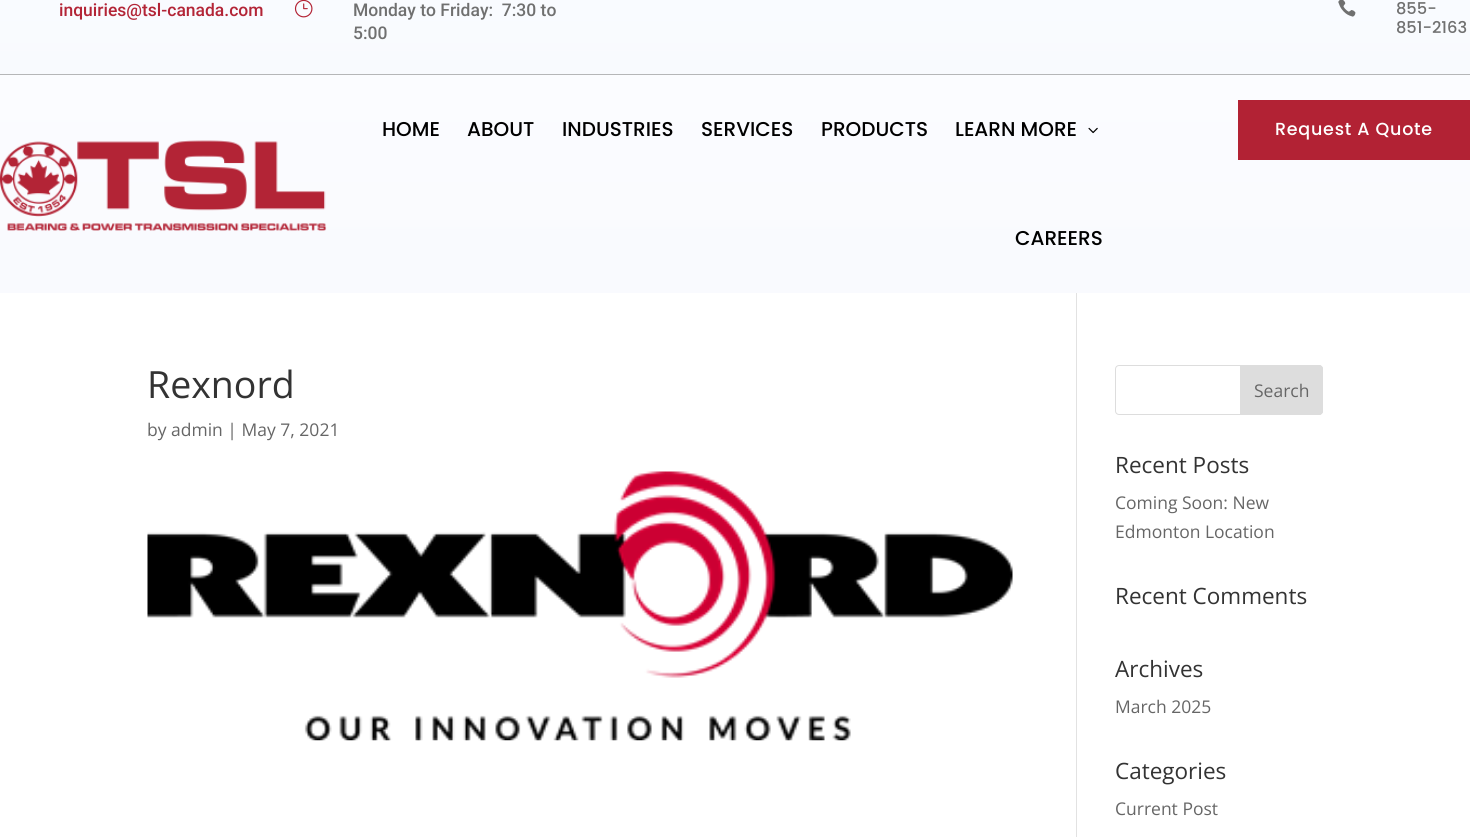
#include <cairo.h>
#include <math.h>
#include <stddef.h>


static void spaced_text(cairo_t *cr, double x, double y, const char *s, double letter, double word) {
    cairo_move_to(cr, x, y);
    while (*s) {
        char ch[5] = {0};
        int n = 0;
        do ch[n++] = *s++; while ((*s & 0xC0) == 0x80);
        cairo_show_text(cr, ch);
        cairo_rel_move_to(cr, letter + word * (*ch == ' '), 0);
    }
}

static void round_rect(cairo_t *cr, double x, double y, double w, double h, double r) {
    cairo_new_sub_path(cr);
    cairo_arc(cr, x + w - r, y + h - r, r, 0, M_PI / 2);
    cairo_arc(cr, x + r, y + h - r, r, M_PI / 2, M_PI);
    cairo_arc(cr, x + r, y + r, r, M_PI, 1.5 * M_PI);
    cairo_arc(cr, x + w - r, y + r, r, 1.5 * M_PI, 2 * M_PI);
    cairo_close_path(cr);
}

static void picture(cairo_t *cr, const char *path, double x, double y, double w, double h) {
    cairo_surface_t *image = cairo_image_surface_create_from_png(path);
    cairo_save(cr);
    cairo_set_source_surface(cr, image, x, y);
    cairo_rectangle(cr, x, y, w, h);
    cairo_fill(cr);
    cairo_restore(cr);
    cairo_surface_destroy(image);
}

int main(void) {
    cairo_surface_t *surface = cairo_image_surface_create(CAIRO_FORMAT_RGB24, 1470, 837);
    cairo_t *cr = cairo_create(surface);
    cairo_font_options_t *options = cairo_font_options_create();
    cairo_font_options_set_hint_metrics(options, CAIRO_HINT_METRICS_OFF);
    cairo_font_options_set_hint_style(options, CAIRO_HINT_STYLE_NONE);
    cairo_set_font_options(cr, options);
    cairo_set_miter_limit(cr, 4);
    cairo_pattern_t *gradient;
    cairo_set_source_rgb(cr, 1, 1, 1);
    cairo_paint(cr);
    gradient = cairo_pattern_create_linear(735, -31, 735, 74);
    cairo_pattern_add_color_stop_rgba(gradient, 0, 0.98, 0.988, 1, 1);
    cairo_pattern_add_color_stop_rgba(gradient, 1, 0.973, 0.98, 0.996, 1);
    cairo_set_source(cr, gradient);
    cairo_pattern_destroy(gradient);
    cairo_rectangle(cr, 0, 0, 1470, 74);
    cairo_fill(cr);
    cairo_set_source_rgb(cr, 0.71, 0.714, 0.722);
    cairo_rectangle(cr, 0, 74, 1470, 1);
    cairo_fill(cr);
    cairo_select_font_face(cr, "Roboto Medium", CAIRO_FONT_SLANT_NORMAL, CAIRO_FONT_WEIGHT_NORMAL);
    cairo_set_font_size(cr, 17.5);
    cairo_set_source_rgb(cr, 0.702, 0.145, 0.216);
    cairo_move_to(cr, 59, 16);
    cairo_show_text(cr, "inquiries@tsl-canada.com");
    picture(cr, "img1.png", 294, 0, 19, 18);
    cairo_set_source_rgb(cr, 0.439, 0.439, 0.439);
    cairo_move_to(cr, 353, 16);
    cairo_show_text(cr, "Monday to Friday:  7:30 to");
    cairo_move_to(cr, 353, 39);
    cairo_show_text(cr, "5:00");
    picture(cr, "img2.png", 1338, 0, 18, 17);
    cairo_select_font_face(cr, "Poppins Medium", CAIRO_FONT_SLANT_NORMAL, CAIRO_FONT_WEIGHT_NORMAL);
    cairo_set_font_size(cr, 16.25);
    cairo_move_to(cr, 1396, 14);
    cairo_show_text(cr, "855-");
    cairo_move_to(cr, 1396, 33);
    cairo_show_text(cr, "851-2163");
    gradient = cairo_pattern_create_linear(735, 75, 735, 293);
    cairo_pattern_add_color_stop_rgba(gradient, 0, 0.984, 0.988, 1, 1);
    cairo_pattern_add_color_stop_rgba(gradient, 1, 0.976, 0.98, 0.996, 1);
    cairo_set_source(cr, gradient);
    cairo_pattern_destroy(gradient);
    cairo_rectangle(cr, 0, 75, 1470, 218);
    cairo_fill(cr);
    picture(cr, "img3.png", 0, 140, 327, 91);
    cairo_set_font_size(cr, 20);
    cairo_set_source_rgb(cr, 0, 0, 0);
    cairo_move_to(cr, 382, 136);
    cairo_show_text(cr, "HOME");
    cairo_move_to(cr, 467, 136);
    cairo_show_text(cr, "ABOUT");
    cairo_move_to(cr, 562, 136);
    cairo_show_text(cr, "INDUSTRIES");
    cairo_move_to(cr, 701, 136);
    cairo_show_text(cr, "SERVICES");
    cairo_move_to(cr, 821, 136);
    cairo_show_text(cr, "PRODUCTS");
    cairo_move_to(cr, 955, 136);
    cairo_show_text(cr, "LEARN MORE");
    picture(cr, "img4.png", 1088, 127, 10, 7);
    cairo_move_to(cr, 1015, 245);
    cairo_show_text(cr, "CAREERS");
    cairo_set_source_rgb(cr, 0.698, 0.133, 0.204);
    cairo_rectangle(cr, 1238, 100, 232, 60);
    cairo_fill(cr);
    cairo_set_font_size(cr, 17.5);
    cairo_set_source_rgb(cr, 1, 1, 1);
    spaced_text(cr, 1275, 135, "Request A Quote", 0.75, 0);
    cairo_set_source_rgb(cr, 0.886, 0.886, 0.886);
    cairo_rectangle(cr, 1076, 293, 1, 544);
    cairo_fill(cr);
    cairo_select_font_face(cr, "Open Sans", CAIRO_FONT_SLANT_NORMAL, CAIRO_FONT_WEIGHT_NORMAL);
    cairo_set_font_size(cr, 37.5);
    cairo_set_source_rgb(cr, 0.2, 0.2, 0.2);
    cairo_move_to(cr, 147, 398);
    cairo_show_text(cr, "Rexnord");
    cairo_set_font_size(cr, 17.5);
    cairo_set_source_rgb(cr, 0.4, 0.4, 0.4);
    cairo_move_to(cr, 147, 436);
    cairo_show_text(cr, "by admin | May 7, 2021");
    picture(cr, "img5.png", 147, 471, 866, 270);
    round_rect(cr, 1115.5, 365.5, 207, 49, 3.5);
    cairo_set_source_rgb(cr, 0.867, 0.867, 0.867);
    cairo_set_line_width(cr, 1);
    cairo_stroke(cr);
    cairo_new_path(cr);
    cairo_move_to(cr, 1240.5, 365.5);
    cairo_line_to(cr, 1319, 365.5);
    cairo_curve_to(cr, 1321, 365.5, 1322.5, 367, 1322.5, 369);
    cairo_line_to(cr, 1322.5, 411);
    cairo_curve_to(cr, 1322.5, 413, 1321, 414.5, 1319, 414.5);
    cairo_line_to(cr, 1240.5, 414.5);
    cairo_close_path(cr);
    cairo_fill_preserve(cr);
    cairo_stroke(cr);
    cairo_set_source_rgb(cr, 0.4, 0.4, 0.4);
    cairo_move_to(cr, 1254, 397);
    cairo_show_text(cr, "Search");
    cairo_set_font_size(cr, 22.5);
    cairo_set_source_rgb(cr, 0.2, 0.2, 0.2);
    cairo_move_to(cr, 1115, 473);
    cairo_show_text(cr, "Recent Posts");
    cairo_set_font_size(cr, 17.5);
    cairo_set_source_rgb(cr, 0.4, 0.4, 0.4);
    cairo_move_to(cr, 1115, 509);
    cairo_show_text(cr, "Coming Soon: New");
    cairo_move_to(cr, 1115, 538);
    cairo_show_text(cr, "Edmonton Location");
    cairo_set_font_size(cr, 22.5);
    cairo_set_source_rgb(cr, 0.2, 0.2, 0.2);
    cairo_move_to(cr, 1115, 604);
    cairo_show_text(cr, "Recent Comments");
    cairo_move_to(cr, 1115, 677);
    cairo_show_text(cr, "Archives");
    cairo_set_font_size(cr, 17.5);
    cairo_set_source_rgb(cr, 0.4, 0.4, 0.4);
    cairo_move_to(cr, 1115, 713);
    cairo_show_text(cr, "March 2025");
    cairo_set_font_size(cr, 22.5);
    cairo_set_source_rgb(cr, 0.2, 0.2, 0.2);
    cairo_move_to(cr, 1115, 779);
    cairo_show_text(cr, "Categories");
    cairo_set_font_size(cr, 17.5);
    cairo_set_source_rgb(cr, 0.4, 0.4, 0.4);
    cairo_move_to(cr, 1115, 815);
    cairo_show_text(cr, "Current Post");
    cairo_surface_write_to_png(surface, "page.png");
    cairo_font_options_destroy(options);
    cairo_destroy(cr);
    cairo_surface_destroy(surface);
    return 0;
}
